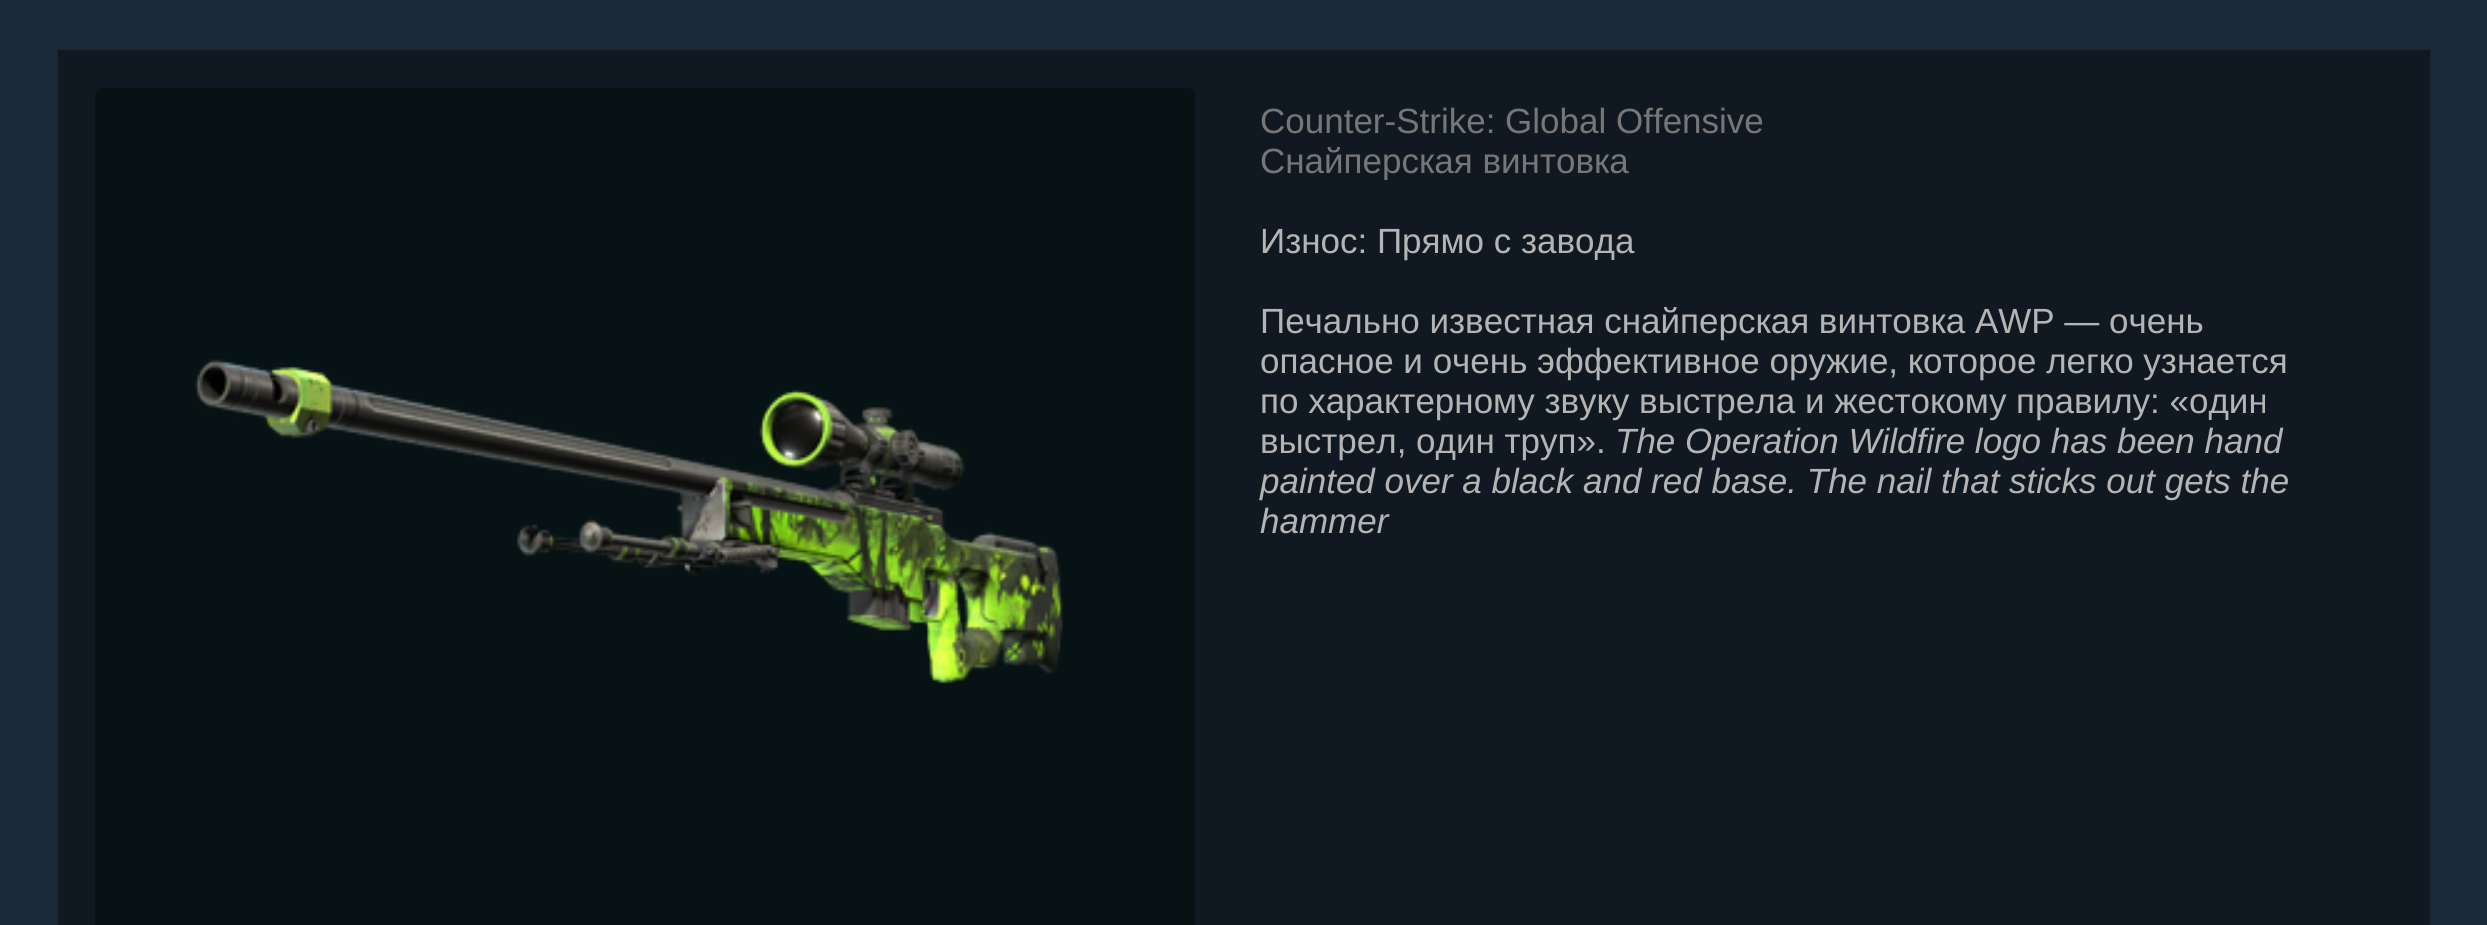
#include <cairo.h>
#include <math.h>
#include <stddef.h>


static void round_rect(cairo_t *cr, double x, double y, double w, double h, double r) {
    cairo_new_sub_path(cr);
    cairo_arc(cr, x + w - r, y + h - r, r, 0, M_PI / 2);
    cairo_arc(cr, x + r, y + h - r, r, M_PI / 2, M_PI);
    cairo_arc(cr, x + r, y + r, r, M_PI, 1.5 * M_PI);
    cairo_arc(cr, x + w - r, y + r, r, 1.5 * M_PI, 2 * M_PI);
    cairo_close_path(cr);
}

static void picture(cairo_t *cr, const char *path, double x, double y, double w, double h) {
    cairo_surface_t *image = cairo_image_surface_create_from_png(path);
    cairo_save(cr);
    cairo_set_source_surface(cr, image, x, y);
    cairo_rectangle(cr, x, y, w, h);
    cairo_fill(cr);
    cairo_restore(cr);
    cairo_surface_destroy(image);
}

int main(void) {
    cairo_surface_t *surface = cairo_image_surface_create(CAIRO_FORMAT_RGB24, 2487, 925);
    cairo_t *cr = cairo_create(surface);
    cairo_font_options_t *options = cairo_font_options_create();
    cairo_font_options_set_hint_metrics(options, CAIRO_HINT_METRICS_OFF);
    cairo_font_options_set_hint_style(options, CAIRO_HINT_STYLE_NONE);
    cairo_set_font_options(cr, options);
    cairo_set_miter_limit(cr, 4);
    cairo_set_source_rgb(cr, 0.106, 0.157, 0.22);
    cairo_paint(cr);
    cairo_set_source_rgb(cr, 0.063, 0.094, 0.133);
    cairo_rectangle(cr, 58, 50, 2372, 875);
    cairo_fill(cr);
    cairo_set_source_rgb(cr, 0.027, 0.071, 0.082);
    round_rect(cr, 95, 88, 1100, 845, 8);
    cairo_fill(cr);
    picture(cr, "img1.png", 195, 359, 868, 325);
    cairo_select_font_face(cr, "Liberation Sans", CAIRO_FONT_SLANT_NORMAL, CAIRO_FONT_WEIGHT_NORMAL);
    cairo_set_font_size(cr, 35);
    cairo_set_source_rgb(cr, 0.463, 0.463, 0.463);
    cairo_move_to(cr, 1260, 133);
    cairo_show_text(cr, "Counter-Strike: Global Offensive");
    cairo_save(cr);
    cairo_rectangle(cr, 1260, 100, 1063, 80);
    cairo_clip(cr);
    cairo_move_to(cr, 1260, 173);
    cairo_show_text(cr, "Снайперская винтовка");
    cairo_restore(cr);
    cairo_set_source_rgb(cr, 0.706, 0.706, 0.706);
    cairo_move_to(cr, 1260, 253);
    cairo_show_text(cr, "Износ: Прямо с завода");
    cairo_move_to(cr, 1260, 333);
    cairo_show_text(cr, "Печально известная снайперская винтовка AWP — очень");
    cairo_move_to(cr, 1260, 373);
    cairo_show_text(cr, "опасное и очень эффективное оружие, которое легко узнается");
    cairo_move_to(cr, 1260, 413);
    cairo_show_text(cr, "по характерному звуку выстрела и жестокому правилу: «один");
    cairo_move_to(cr, 1260, 453);
    cairo_show_text(cr, "выстрел, один труп».");
    cairo_select_font_face(cr, "Liberation Sans", CAIRO_FONT_SLANT_ITALIC, CAIRO_FONT_WEIGHT_NORMAL);
    cairo_move_to(cr, 1615, 453);
    cairo_show_text(cr, "The Operation Wildfire logo has been hand");
    cairo_move_to(cr, 1260, 493);
    cairo_show_text(cr, "painted over a black and red base. The nail that sticks out gets the");
    cairo_move_to(cr, 1260, 533);
    cairo_show_text(cr, "hammer");
    cairo_surface_write_to_png(surface, "page.png");
    cairo_font_options_destroy(options);
    cairo_destroy(cr);
    cairo_surface_destroy(surface);
    return 0;
}
